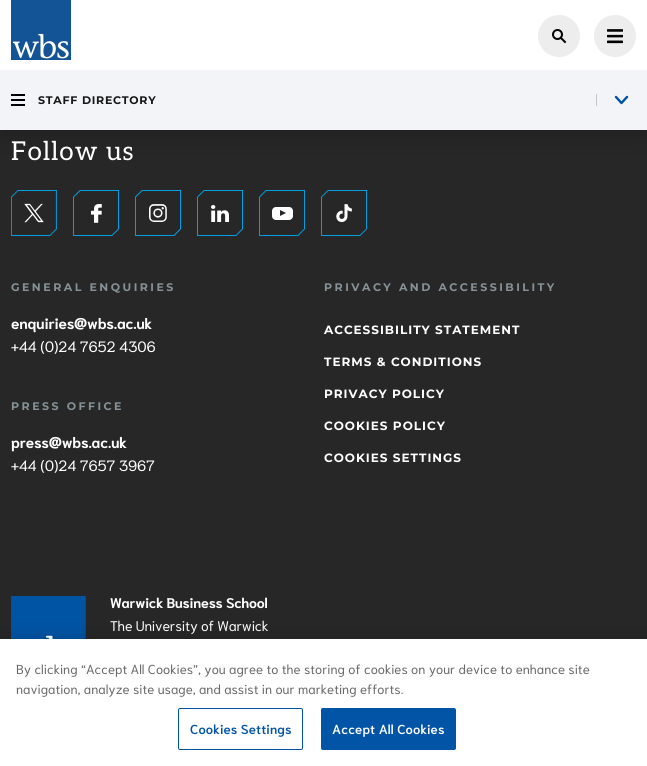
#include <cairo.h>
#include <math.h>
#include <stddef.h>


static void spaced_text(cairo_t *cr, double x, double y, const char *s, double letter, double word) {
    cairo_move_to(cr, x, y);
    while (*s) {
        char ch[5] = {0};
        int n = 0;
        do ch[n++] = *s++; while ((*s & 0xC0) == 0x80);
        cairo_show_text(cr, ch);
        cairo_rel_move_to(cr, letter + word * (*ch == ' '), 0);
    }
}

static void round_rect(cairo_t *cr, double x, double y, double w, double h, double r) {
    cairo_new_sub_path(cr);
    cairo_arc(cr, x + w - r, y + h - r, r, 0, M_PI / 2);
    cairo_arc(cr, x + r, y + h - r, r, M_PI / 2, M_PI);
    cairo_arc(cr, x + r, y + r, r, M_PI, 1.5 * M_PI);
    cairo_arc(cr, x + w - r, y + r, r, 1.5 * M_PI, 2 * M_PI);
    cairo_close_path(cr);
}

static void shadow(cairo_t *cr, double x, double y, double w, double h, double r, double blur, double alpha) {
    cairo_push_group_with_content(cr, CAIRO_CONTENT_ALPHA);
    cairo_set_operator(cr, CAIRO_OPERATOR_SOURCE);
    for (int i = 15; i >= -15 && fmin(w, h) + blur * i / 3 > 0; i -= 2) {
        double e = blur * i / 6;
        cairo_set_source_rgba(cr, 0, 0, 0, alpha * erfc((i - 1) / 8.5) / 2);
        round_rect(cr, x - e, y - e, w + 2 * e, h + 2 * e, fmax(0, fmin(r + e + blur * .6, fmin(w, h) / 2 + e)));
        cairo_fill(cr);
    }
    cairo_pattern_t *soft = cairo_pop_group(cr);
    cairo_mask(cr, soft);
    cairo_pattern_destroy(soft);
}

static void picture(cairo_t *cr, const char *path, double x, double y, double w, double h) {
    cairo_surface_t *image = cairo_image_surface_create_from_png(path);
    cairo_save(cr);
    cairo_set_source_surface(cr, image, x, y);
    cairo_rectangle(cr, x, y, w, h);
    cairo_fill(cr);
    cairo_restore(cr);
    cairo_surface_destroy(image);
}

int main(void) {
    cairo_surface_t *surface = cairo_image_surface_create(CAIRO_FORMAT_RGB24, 647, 766);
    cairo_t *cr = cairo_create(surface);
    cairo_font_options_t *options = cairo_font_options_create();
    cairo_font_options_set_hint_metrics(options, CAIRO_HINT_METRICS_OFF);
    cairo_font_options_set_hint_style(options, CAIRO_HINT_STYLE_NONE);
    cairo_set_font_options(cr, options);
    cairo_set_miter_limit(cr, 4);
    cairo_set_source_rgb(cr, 0.153, 0.153, 0.153);
    cairo_paint(cr);
    cairo_set_source_rgb(cr, 0, 0, 0);
    shadow(cr, 2, 72, 643, 56, 0, 15, 0.35);
    cairo_set_source_rgb(cr, 1, 1, 1);
    cairo_rectangle(cr, 0, 0, 647, 70);
    cairo_fill(cr);
    picture(cr, "img1.png", 11, 0, 60, 60);
    cairo_set_source_rgb(cr, 0.929, 0.929, 0.929);
    cairo_arc(cr, 559, 36, 21, 0, 2 * M_PI);
    cairo_fill(cr);
    picture(cr, "img2.png", 552, 29, 15, 15);
    cairo_arc(cr, 615, 36, 21, 0, 2 * M_PI);
    cairo_fill(cr);
    picture(cr, "img3.png", 607, 29, 16, 15);
    cairo_set_source_rgb(cr, 0.953, 0.957, 0.965);
    cairo_rectangle(cr, 0, 70, 647, 60);
    cairo_fill(cr);
    picture(cr, "img4.png", 11, 94, 14, 12);
    cairo_select_font_face(cr, "Montserrat", CAIRO_FONT_SLANT_NORMAL, CAIRO_FONT_WEIGHT_BOLD);
    cairo_set_font_size(cr, 11);
    cairo_set_source_rgb(cr, 0.086, 0.086, 0.086);
    spaced_text(cr, 38, 104, "STAFF DIRECTORY", 0.75, 0);
    cairo_set_source_rgb(cr, 0.773, 0.776, 0.78);
    cairo_rectangle(cr, 596, 94, 1, 12);
    cairo_fill(cr);
    cairo_new_path(cr);
    cairo_move_to(cr, 627, 97);
    cairo_line_to(cr, 621.5, 103);
    cairo_line_to(cr, 616, 97);
    cairo_set_source_rgb(cr, 0, 0.329, 0.643);
    cairo_set_line_width(cr, 2.4);
    cairo_set_line_cap(cr, CAIRO_LINE_CAP_ROUND);
    cairo_set_line_join(cr, CAIRO_LINE_JOIN_ROUND);
    cairo_stroke(cr);
    cairo_select_font_face(cr, "Aleo", CAIRO_FONT_SLANT_NORMAL, CAIRO_FONT_WEIGHT_NORMAL);
    cairo_set_font_size(cr, 26);
    cairo_set_source_rgb(cr, 1, 1, 1);
    spaced_text(cr, 11, 160, "Follow us", 1, 0);
    picture(cr, "img5.png", 11, 190, 46, 46);
    picture(cr, "img6.png", 73, 190, 46, 46);
    picture(cr, "img7.png", 135, 190, 46, 46);
    picture(cr, "img8.png", 197, 190, 46, 46);
    picture(cr, "img9.png", 259, 190, 46, 46);
    picture(cr, "img10.png", 321, 190, 46, 46);
    cairo_select_font_face(cr, "Montserrat", CAIRO_FONT_SLANT_NORMAL, CAIRO_FONT_WEIGHT_BOLD);
    cairo_set_font_size(cr, 11);
    cairo_set_source_rgb(cr, 0.522, 0.573, 0.592);
    spaced_text(cr, 11, 291, "GENERAL ENQUIRIES", 2.5, 0);
    cairo_select_font_face(cr, "Niramit", CAIRO_FONT_SLANT_NORMAL, CAIRO_FONT_WEIGHT_BOLD);
    cairo_set_font_size(cr, 15);
    cairo_set_source_rgb(cr, 1, 1, 1);
    spaced_text(cr, 11, 329, "enquiries@wbs.ac.uk", -0.2, 0);
    cairo_select_font_face(cr, "Niramit", CAIRO_FONT_SLANT_NORMAL, CAIRO_FONT_WEIGHT_NORMAL);
    spaced_text(cr, 11, 352, "+44 (0)24 7652 4306", -0.2, 0);
    cairo_select_font_face(cr, "Montserrat", CAIRO_FONT_SLANT_NORMAL, CAIRO_FONT_WEIGHT_BOLD);
    cairo_set_font_size(cr, 11);
    cairo_set_source_rgb(cr, 0.522, 0.573, 0.592);
    spaced_text(cr, 11, 410, "PRESS OFFICE", 2.5, 0);
    cairo_select_font_face(cr, "Niramit", CAIRO_FONT_SLANT_NORMAL, CAIRO_FONT_WEIGHT_BOLD);
    cairo_set_font_size(cr, 15);
    cairo_set_source_rgb(cr, 1, 1, 1);
    spaced_text(cr, 11, 448, "press@wbs.ac.uk", -0.2, 0);
    cairo_select_font_face(cr, "Niramit", CAIRO_FONT_SLANT_NORMAL, CAIRO_FONT_WEIGHT_NORMAL);
    spaced_text(cr, 11, 471, "+44 (0)24 7657 3967", -0.2, 0);
    cairo_select_font_face(cr, "Montserrat", CAIRO_FONT_SLANT_NORMAL, CAIRO_FONT_WEIGHT_BOLD);
    cairo_set_font_size(cr, 11);
    cairo_set_source_rgb(cr, 0.522, 0.573, 0.592);
    spaced_text(cr, 324, 291, "PRIVACY AND ACCESSIBILITY", 2.5, 0);
    cairo_set_font_size(cr, 12);
    cairo_set_source_rgb(cr, 1, 1, 1);
    spaced_text(cr, 324, 334, "ACCESSIBILITY STATEMENT", 1, 0);
    spaced_text(cr, 324, 366, "TERMS & CONDITIONS", 1, 0);
    spaced_text(cr, 324, 398, "PRIVACY POLICY", 1, 0);
    spaced_text(cr, 324, 430, "COOKIES POLICY", 1, 0);
    spaced_text(cr, 324, 462, "COOKIES SETTINGS", 1, 0);
    picture(cr, "img11.png", 11, 596, 75, 43);
    cairo_select_font_face(cr, "Niramit", CAIRO_FONT_SLANT_NORMAL, CAIRO_FONT_WEIGHT_BOLD);
    cairo_set_font_size(cr, 14);
    spaced_text(cr, 110, 608, "Warwick Business School", -0.2, 0);
    cairo_select_font_face(cr, "Niramit", CAIRO_FONT_SLANT_NORMAL, CAIRO_FONT_WEIGHT_NORMAL);
    spaced_text(cr, 110, 631, "The University of Warwick", -0.2, 0);
    cairo_set_source_rgb(cr, 0, 0, 0);
    shadow(cr, 0, 639, 647, 127, 0, 9, 0.2);
    cairo_set_source_rgb(cr, 1, 1, 1);
    cairo_rectangle(cr, 0, 639, 647, 127);
    cairo_fill(cr);
    cairo_set_font_size(cr, 13);
    cairo_set_source_rgb(cr, 0.412, 0.412, 0.412);
    cairo_move_to(cr, 16, 674);
    cairo_show_text(cr, "By clicking “Accept All Cookies”, you agree to the storing of cookies on your device to enhance site");
    cairo_move_to(cr, 16, 694);
    cairo_show_text(cr, "navigation, analyze site usage, and assist in our marketing efforts.");
    round_rect(cr, 178.5, 708.5, 124, 41, 1.5);
    cairo_set_source_rgb(cr, 0.008, 0.329, 0.655);
    cairo_set_line_width(cr, 1);
    cairo_set_line_cap(cr, CAIRO_LINE_CAP_BUTT);
    cairo_set_line_join(cr, CAIRO_LINE_JOIN_MITER);
    cairo_stroke(cr);
    cairo_select_font_face(cr, "Niramit SemiBold", CAIRO_FONT_SLANT_NORMAL, CAIRO_FONT_WEIGHT_NORMAL);
    spaced_text(cr, 190, 734, "Cookies Settings", 0.1, 0);
    round_rect(cr, 321.5, 708.5, 134, 41, 1.5);
    cairo_fill_preserve(cr);
    cairo_stroke(cr);
    cairo_set_source_rgb(cr, 1, 1, 1);
    spaced_text(cr, 332, 734, "Accept All Cookies", 0.1, 0);
    cairo_surface_write_to_png(surface, "page.png");
    cairo_font_options_destroy(options);
    cairo_destroy(cr);
    cairo_surface_destroy(surface);
    return 0;
}
